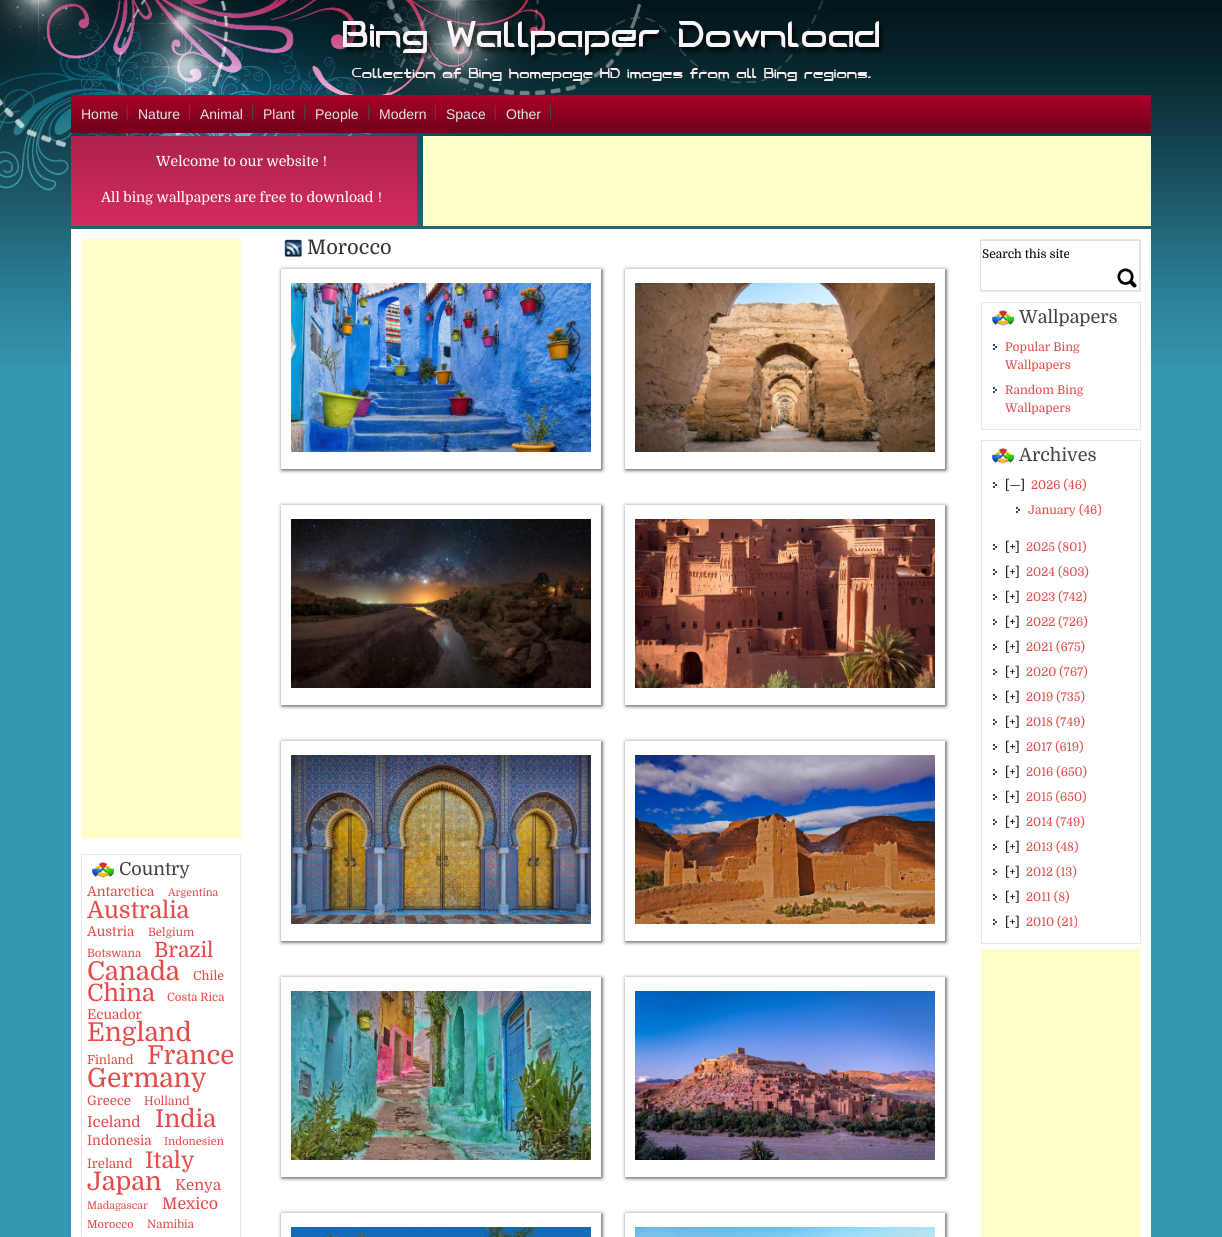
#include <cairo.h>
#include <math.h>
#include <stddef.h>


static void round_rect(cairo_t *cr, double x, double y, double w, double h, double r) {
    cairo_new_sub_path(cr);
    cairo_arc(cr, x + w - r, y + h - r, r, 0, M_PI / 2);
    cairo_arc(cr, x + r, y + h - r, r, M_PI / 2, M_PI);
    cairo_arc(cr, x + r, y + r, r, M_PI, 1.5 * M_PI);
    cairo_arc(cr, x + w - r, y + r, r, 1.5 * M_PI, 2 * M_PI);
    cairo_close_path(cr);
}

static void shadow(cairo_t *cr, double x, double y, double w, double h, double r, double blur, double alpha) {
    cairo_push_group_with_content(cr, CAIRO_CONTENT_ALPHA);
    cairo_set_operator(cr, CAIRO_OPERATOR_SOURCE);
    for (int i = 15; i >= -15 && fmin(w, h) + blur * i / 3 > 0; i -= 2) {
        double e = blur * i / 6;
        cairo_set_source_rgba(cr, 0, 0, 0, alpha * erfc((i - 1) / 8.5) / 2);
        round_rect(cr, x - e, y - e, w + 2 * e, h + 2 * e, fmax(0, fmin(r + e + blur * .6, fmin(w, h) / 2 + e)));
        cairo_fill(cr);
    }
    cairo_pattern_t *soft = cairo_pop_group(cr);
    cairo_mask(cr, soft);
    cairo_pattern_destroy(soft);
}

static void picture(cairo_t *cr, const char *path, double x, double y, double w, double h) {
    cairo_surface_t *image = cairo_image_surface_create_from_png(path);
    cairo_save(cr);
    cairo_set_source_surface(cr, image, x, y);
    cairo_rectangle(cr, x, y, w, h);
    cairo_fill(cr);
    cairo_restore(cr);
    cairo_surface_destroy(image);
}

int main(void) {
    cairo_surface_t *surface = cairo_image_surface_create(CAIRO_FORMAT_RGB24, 1222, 1237);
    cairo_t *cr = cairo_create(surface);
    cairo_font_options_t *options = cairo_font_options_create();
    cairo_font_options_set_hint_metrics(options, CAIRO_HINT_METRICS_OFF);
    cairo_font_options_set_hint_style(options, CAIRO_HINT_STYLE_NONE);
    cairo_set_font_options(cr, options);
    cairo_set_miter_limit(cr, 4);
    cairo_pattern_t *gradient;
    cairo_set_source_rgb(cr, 0.204, 0.588, 0.694);
    cairo_paint(cr);
    picture(cr, "img1.png", 0, 0, 1222, 365);
    picture(cr, "img2.png", 342, 21, 542, 61);
    gradient = cairo_pattern_create_linear(611, 95, 611, 133);
    cairo_pattern_add_color_stop_rgba(gradient, 0, 0.663, 0.012, 0.161, 1);
    cairo_pattern_add_color_stop_rgba(gradient, 0.44, 0.561, 0.008, 0.133, 1);
    cairo_pattern_add_color_stop_rgba(gradient, 1, 0.427, 0, 0.098, 1);
    cairo_set_source(cr, gradient);
    cairo_pattern_destroy(gradient);
    cairo_rectangle(cr, 71, 95, 1080, 38);
    cairo_fill(cr);
    cairo_set_source_rgb(cr, 0.282, 0.282, 0.282);
    cairo_rectangle(cr, 127, 105, 1, 14);
    cairo_fill(cr);
    cairo_select_font_face(cr, "Liberation Sans", CAIRO_FONT_SLANT_NORMAL, CAIRO_FONT_WEIGHT_NORMAL);
    cairo_set_font_size(cr, 14);
    cairo_set_source_rgb(cr, 0.906, 0.906, 0.906);
    cairo_move_to(cr, 81, 119);
    cairo_show_text(cr, "Home");
    cairo_set_source_rgb(cr, 0.282, 0.282, 0.282);
    cairo_rectangle(cr, 189, 105, 1, 14);
    cairo_fill(cr);
    cairo_set_source_rgb(cr, 0.906, 0.906, 0.906);
    cairo_move_to(cr, 138, 119);
    cairo_show_text(cr, "Nature");
    cairo_set_source_rgb(cr, 0.282, 0.282, 0.282);
    cairo_rectangle(cr, 252, 105, 1, 14);
    cairo_fill(cr);
    cairo_set_source_rgb(cr, 0.906, 0.906, 0.906);
    cairo_move_to(cr, 200, 119);
    cairo_show_text(cr, "Animal");
    cairo_set_source_rgb(cr, 0.282, 0.282, 0.282);
    cairo_rectangle(cr, 304, 105, 1, 14);
    cairo_fill(cr);
    cairo_set_source_rgb(cr, 0.906, 0.906, 0.906);
    cairo_move_to(cr, 263, 119);
    cairo_show_text(cr, "Plant");
    cairo_set_source_rgb(cr, 0.282, 0.282, 0.282);
    cairo_rectangle(cr, 368, 105, 1, 14);
    cairo_fill(cr);
    cairo_set_source_rgb(cr, 0.906, 0.906, 0.906);
    cairo_move_to(cr, 315, 119);
    cairo_show_text(cr, "People");
    cairo_set_source_rgb(cr, 0.282, 0.282, 0.282);
    cairo_rectangle(cr, 435, 105, 1, 14);
    cairo_fill(cr);
    cairo_set_source_rgb(cr, 0.906, 0.906, 0.906);
    cairo_move_to(cr, 379, 119);
    cairo_show_text(cr, "Modern");
    cairo_set_source_rgb(cr, 0.282, 0.282, 0.282);
    cairo_rectangle(cr, 495, 105, 1, 14);
    cairo_fill(cr);
    cairo_set_source_rgb(cr, 0.906, 0.906, 0.906);
    cairo_move_to(cr, 446, 119);
    cairo_show_text(cr, "Space");
    cairo_set_source_rgb(cr, 0.282, 0.282, 0.282);
    cairo_rectangle(cr, 550, 105, 1, 14);
    cairo_fill(cr);
    cairo_set_source_rgb(cr, 0.906, 0.906, 0.906);
    cairo_move_to(cr, 506, 119);
    cairo_show_text(cr, "Other");
    picture(cr, "img3.png", 71, 136, 346, 90);
    cairo_select_font_face(cr, "Domine", CAIRO_FONT_SLANT_NORMAL, CAIRO_FONT_WEIGHT_NORMAL);
    cairo_set_source_rgb(cr, 1, 1, 1);
    cairo_move_to(cr, 156, 166);
    cairo_show_text(cr, "Welcome to our website");
    cairo_select_font_face(cr, "WenQuanYi Zen Hei Medium", CAIRO_FONT_SLANT_NORMAL, CAIRO_FONT_WEIGHT_NORMAL);
    cairo_move_to(cr, 318, 166);
    cairo_show_text(cr, "！");
    cairo_select_font_face(cr, "Domine", CAIRO_FONT_SLANT_NORMAL, CAIRO_FONT_WEIGHT_NORMAL);
    cairo_move_to(cr, 101, 202);
    cairo_show_text(cr, "All bing wallpapers are free to download");
    cairo_select_font_face(cr, "WenQuanYi Zen Hei Medium", CAIRO_FONT_SLANT_NORMAL, CAIRO_FONT_WEIGHT_NORMAL);
    cairo_move_to(cr, 373, 202);
    cairo_show_text(cr, "！");
    cairo_set_source_rgb(cr, 1, 1, 0.8);
    cairo_rectangle(cr, 423, 136, 728, 90);
    cairo_fill(cr);
    cairo_set_source_rgb(cr, 1, 1, 1);
    cairo_rectangle(cr, 71, 229, 1080, 1008);
    cairo_fill(cr);
    picture(cr, "img4.png", 284, 239, 18, 18);
    cairo_select_font_face(cr, "Domine", CAIRO_FONT_SLANT_NORMAL, CAIRO_FONT_WEIGHT_NORMAL);
    cairo_set_font_size(cr, 20);
    cairo_set_source_rgb(cr, 0.2, 0.2, 0.2);
    cairo_move_to(cr, 307, 254);
    cairo_show_text(cr, "Morocco");
    cairo_save(cr);
    cairo_set_fill_rule(cr, CAIRO_FILL_RULE_EVEN_ODD);
    cairo_new_path(cr);
    cairo_move_to(cr, 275, 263);
    cairo_line_to(cr, 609, 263);
    cairo_line_to(cr, 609, 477);
    cairo_line_to(cr, 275, 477);
    cairo_close_path(cr);
    cairo_move_to(cr, 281, 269);
    cairo_line_to(cr, 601, 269);
    cairo_line_to(cr, 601, 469);
    cairo_line_to(cr, 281, 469);
    cairo_close_path(cr);
    cairo_clip(cr);
    cairo_set_source_rgb(cr, 0.259, 0.259, 0.259);
    shadow(cr, 282, 270, 320, 200, 0, 2, 1);
    cairo_restore(cr);
    picture(cr, "img5.png", 291, 283, 300, 169);
    cairo_save(cr);
    cairo_set_fill_rule(cr, CAIRO_FILL_RULE_EVEN_ODD);
    cairo_new_path(cr);
    cairo_move_to(cr, 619, 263);
    cairo_line_to(cr, 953, 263);
    cairo_line_to(cr, 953, 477);
    cairo_line_to(cr, 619, 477);
    cairo_close_path(cr);
    cairo_move_to(cr, 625, 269);
    cairo_line_to(cr, 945, 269);
    cairo_line_to(cr, 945, 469);
    cairo_line_to(cr, 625, 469);
    cairo_close_path(cr);
    cairo_clip(cr);
    cairo_set_source_rgb(cr, 0.259, 0.259, 0.259);
    shadow(cr, 626, 270, 320, 200, 0, 2, 1);
    cairo_restore(cr);
    picture(cr, "img6.png", 635, 283, 300, 169);
    cairo_save(cr);
    cairo_set_fill_rule(cr, CAIRO_FILL_RULE_EVEN_ODD);
    cairo_new_path(cr);
    cairo_move_to(cr, 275, 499);
    cairo_line_to(cr, 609, 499);
    cairo_line_to(cr, 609, 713);
    cairo_line_to(cr, 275, 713);
    cairo_close_path(cr);
    cairo_move_to(cr, 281, 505);
    cairo_line_to(cr, 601, 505);
    cairo_line_to(cr, 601, 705);
    cairo_line_to(cr, 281, 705);
    cairo_close_path(cr);
    cairo_clip(cr);
    cairo_set_source_rgb(cr, 0.259, 0.259, 0.259);
    shadow(cr, 282, 506, 320, 200, 0, 2, 1);
    cairo_restore(cr);
    picture(cr, "img7.png", 291, 519, 300, 169);
    cairo_save(cr);
    cairo_set_fill_rule(cr, CAIRO_FILL_RULE_EVEN_ODD);
    cairo_new_path(cr);
    cairo_move_to(cr, 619, 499);
    cairo_line_to(cr, 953, 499);
    cairo_line_to(cr, 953, 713);
    cairo_line_to(cr, 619, 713);
    cairo_close_path(cr);
    cairo_move_to(cr, 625, 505);
    cairo_line_to(cr, 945, 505);
    cairo_line_to(cr, 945, 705);
    cairo_line_to(cr, 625, 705);
    cairo_close_path(cr);
    cairo_clip(cr);
    cairo_set_source_rgb(cr, 0.259, 0.259, 0.259);
    shadow(cr, 626, 506, 320, 200, 0, 2, 1);
    cairo_restore(cr);
    picture(cr, "img8.png", 635, 519, 300, 169);
    cairo_save(cr);
    cairo_set_fill_rule(cr, CAIRO_FILL_RULE_EVEN_ODD);
    cairo_new_path(cr);
    cairo_move_to(cr, 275, 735);
    cairo_line_to(cr, 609, 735);
    cairo_line_to(cr, 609, 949);
    cairo_line_to(cr, 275, 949);
    cairo_close_path(cr);
    cairo_move_to(cr, 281, 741);
    cairo_line_to(cr, 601, 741);
    cairo_line_to(cr, 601, 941);
    cairo_line_to(cr, 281, 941);
    cairo_close_path(cr);
    cairo_clip(cr);
    cairo_set_source_rgb(cr, 0.259, 0.259, 0.259);
    shadow(cr, 282, 742, 320, 200, 0, 2, 1);
    cairo_restore(cr);
    picture(cr, "img9.png", 291, 755, 300, 169);
    cairo_save(cr);
    cairo_set_fill_rule(cr, CAIRO_FILL_RULE_EVEN_ODD);
    cairo_new_path(cr);
    cairo_move_to(cr, 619, 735);
    cairo_line_to(cr, 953, 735);
    cairo_line_to(cr, 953, 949);
    cairo_line_to(cr, 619, 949);
    cairo_close_path(cr);
    cairo_move_to(cr, 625, 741);
    cairo_line_to(cr, 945, 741);
    cairo_line_to(cr, 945, 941);
    cairo_line_to(cr, 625, 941);
    cairo_close_path(cr);
    cairo_clip(cr);
    cairo_set_source_rgb(cr, 0.259, 0.259, 0.259);
    shadow(cr, 626, 742, 320, 200, 0, 2, 1);
    cairo_restore(cr);
    picture(cr, "img10.png", 635, 755, 300, 169);
    cairo_save(cr);
    cairo_set_fill_rule(cr, CAIRO_FILL_RULE_EVEN_ODD);
    cairo_new_path(cr);
    cairo_move_to(cr, 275, 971);
    cairo_line_to(cr, 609, 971);
    cairo_line_to(cr, 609, 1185);
    cairo_line_to(cr, 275, 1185);
    cairo_close_path(cr);
    cairo_move_to(cr, 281, 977);
    cairo_line_to(cr, 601, 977);
    cairo_line_to(cr, 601, 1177);
    cairo_line_to(cr, 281, 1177);
    cairo_close_path(cr);
    cairo_clip(cr);
    cairo_set_source_rgb(cr, 0.259, 0.259, 0.259);
    shadow(cr, 282, 978, 320, 200, 0, 2, 1);
    cairo_restore(cr);
    picture(cr, "img11.png", 291, 991, 300, 169);
    cairo_save(cr);
    cairo_set_fill_rule(cr, CAIRO_FILL_RULE_EVEN_ODD);
    cairo_new_path(cr);
    cairo_move_to(cr, 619, 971);
    cairo_line_to(cr, 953, 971);
    cairo_line_to(cr, 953, 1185);
    cairo_line_to(cr, 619, 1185);
    cairo_close_path(cr);
    cairo_move_to(cr, 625, 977);
    cairo_line_to(cr, 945, 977);
    cairo_line_to(cr, 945, 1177);
    cairo_line_to(cr, 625, 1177);
    cairo_close_path(cr);
    cairo_clip(cr);
    cairo_set_source_rgb(cr, 0.259, 0.259, 0.259);
    shadow(cr, 626, 978, 320, 200, 0, 2, 1);
    cairo_restore(cr);
    picture(cr, "img12.png", 635, 991, 300, 169);
    cairo_save(cr);
    cairo_set_fill_rule(cr, CAIRO_FILL_RULE_EVEN_ODD);
    cairo_new_path(cr);
    cairo_move_to(cr, 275, 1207);
    cairo_line_to(cr, 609, 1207);
    cairo_line_to(cr, 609, 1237);
    cairo_line_to(cr, 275, 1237);
    cairo_close_path(cr);
    cairo_move_to(cr, 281, 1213);
    cairo_line_to(cr, 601, 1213);
    cairo_line_to(cr, 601, 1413);
    cairo_line_to(cr, 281, 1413);
    cairo_close_path(cr);
    cairo_clip(cr);
    cairo_set_source_rgb(cr, 0.259, 0.259, 0.259);
    shadow(cr, 282, 1214, 320, 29, 0, 2, 1);
    cairo_restore(cr);
    picture(cr, "img13.png", 291, 1227, 300, 10);
    cairo_save(cr);
    cairo_set_fill_rule(cr, CAIRO_FILL_RULE_EVEN_ODD);
    cairo_new_path(cr);
    cairo_move_to(cr, 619, 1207);
    cairo_line_to(cr, 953, 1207);
    cairo_line_to(cr, 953, 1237);
    cairo_line_to(cr, 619, 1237);
    cairo_close_path(cr);
    cairo_move_to(cr, 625, 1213);
    cairo_line_to(cr, 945, 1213);
    cairo_line_to(cr, 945, 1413);
    cairo_line_to(cr, 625, 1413);
    cairo_close_path(cr);
    cairo_clip(cr);
    cairo_set_source_rgb(cr, 0.259, 0.259, 0.259);
    shadow(cr, 626, 1214, 320, 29, 0, 2, 1);
    cairo_restore(cr);
    picture(cr, "img14.png", 635, 1227, 300, 10);
    cairo_rectangle(cr, 981.5, 239.5, 159, 52);
    cairo_set_source_rgb(cr, 0.906, 0.906, 0.906);
    cairo_set_line_width(cr, 1);
    cairo_stroke(cr);
    cairo_set_source_rgb(cr, 1, 1, 1);
    cairo_rectangle(cr, 981, 241, 1, 49);
    cairo_fill(cr);
    cairo_rectangle(cr, 980.5, 240.5, 159, 50);
    cairo_set_source_rgb(cr, 0.867, 0.867, 0.933);
    cairo_stroke(cr);
    cairo_set_font_size(cr, 12);
    cairo_set_source_rgb(cr, 0, 0, 0);
    cairo_move_to(cr, 982, 258);
    cairo_show_text(cr, "Search this site");
    picture(cr, "img15.png", 1117, 268, 20, 20);
    cairo_rectangle(cr, 981.5, 302.5, 159, 127);
    cairo_set_source_rgb(cr, 0.906, 0.906, 0.906);
    cairo_stroke(cr);
    picture(cr, "img16.png", 992, 310, 22, 16);
    cairo_set_font_size(cr, 18);
    cairo_set_source_rgb(cr, 0.259, 0.259, 0.259);
    cairo_move_to(cr, 1019, 323);
    cairo_show_text(cr, "Wallpapers");
    picture(cr, "img17.png", 993, 344, 4, 6);
    cairo_set_font_size(cr, 12);
    cairo_set_source_rgb(cr, 0.898, 0.286, 0.286);
    cairo_move_to(cr, 1005, 351);
    cairo_show_text(cr, "Popular Bing");
    cairo_move_to(cr, 1005, 369);
    cairo_show_text(cr, "Wallpapers");
    picture(cr, "img17.png", 993, 387, 4, 6);
    cairo_move_to(cr, 1005, 394);
    cairo_show_text(cr, "Random Bing");
    cairo_move_to(cr, 1005, 412);
    cairo_show_text(cr, "Wallpapers");
    cairo_rectangle(cr, 981.5, 440.5, 159, 503);
    cairo_set_source_rgb(cr, 0.906, 0.906, 0.906);
    cairo_stroke(cr);
    picture(cr, "img16.png", 992, 448, 22, 16);
    cairo_set_font_size(cr, 18);
    cairo_set_source_rgb(cr, 0.259, 0.259, 0.259);
    cairo_move_to(cr, 1019, 461);
    cairo_show_text(cr, "Archives");
    picture(cr, "img17.png", 993, 482, 4, 6);
    cairo_set_font_size(cr, 12);
    cairo_set_source_rgb(cr, 0, 0, 0);
    cairo_move_to(cr, 1005, 489);
    cairo_show_text(cr, "[—]");
    cairo_set_source_rgb(cr, 0.898, 0.286, 0.286);
    cairo_move_to(cr, 1031, 489);
    cairo_show_text(cr, "2026 (46)");
    picture(cr, "img17.png", 1016, 507, 4, 6);
    cairo_move_to(cr, 1028, 514);
    cairo_show_text(cr, "January (46)");
    picture(cr, "img17.png", 993, 544, 4, 6);
    cairo_set_source_rgb(cr, 0, 0, 0);
    cairo_move_to(cr, 1005, 551);
    cairo_show_text(cr, "[+]");
    cairo_set_source_rgb(cr, 0.898, 0.286, 0.286);
    cairo_move_to(cr, 1026, 551);
    cairo_show_text(cr, "2025 (801)");
    picture(cr, "img17.png", 993, 569, 4, 6);
    cairo_set_source_rgb(cr, 0, 0, 0);
    cairo_move_to(cr, 1005, 576);
    cairo_show_text(cr, "[+]");
    cairo_set_source_rgb(cr, 0.898, 0.286, 0.286);
    cairo_move_to(cr, 1026, 576);
    cairo_show_text(cr, "2024 (803)");
    picture(cr, "img17.png", 993, 594, 4, 6);
    cairo_set_source_rgb(cr, 0, 0, 0);
    cairo_move_to(cr, 1005, 601);
    cairo_show_text(cr, "[+]");
    cairo_set_source_rgb(cr, 0.898, 0.286, 0.286);
    cairo_move_to(cr, 1026, 601);
    cairo_show_text(cr, "2023 (742)");
    picture(cr, "img17.png", 993, 619, 4, 6);
    cairo_set_source_rgb(cr, 0, 0, 0);
    cairo_move_to(cr, 1005, 626);
    cairo_show_text(cr, "[+]");
    cairo_set_source_rgb(cr, 0.898, 0.286, 0.286);
    cairo_move_to(cr, 1026, 626);
    cairo_show_text(cr, "2022 (726)");
    picture(cr, "img17.png", 993, 644, 4, 6);
    cairo_set_source_rgb(cr, 0, 0, 0);
    cairo_move_to(cr, 1005, 651);
    cairo_show_text(cr, "[+]");
    cairo_set_source_rgb(cr, 0.898, 0.286, 0.286);
    cairo_move_to(cr, 1026, 651);
    cairo_show_text(cr, "2021 (675)");
    picture(cr, "img17.png", 993, 669, 4, 6);
    cairo_set_source_rgb(cr, 0, 0, 0);
    cairo_move_to(cr, 1005, 676);
    cairo_show_text(cr, "[+]");
    cairo_set_source_rgb(cr, 0.898, 0.286, 0.286);
    cairo_move_to(cr, 1026, 676);
    cairo_show_text(cr, "2020 (767)");
    picture(cr, "img17.png", 993, 694, 4, 6);
    cairo_set_source_rgb(cr, 0, 0, 0);
    cairo_move_to(cr, 1005, 701);
    cairo_show_text(cr, "[+]");
    cairo_set_source_rgb(cr, 0.898, 0.286, 0.286);
    cairo_move_to(cr, 1026, 701);
    cairo_show_text(cr, "2019 (735)");
    picture(cr, "img17.png", 993, 719, 4, 6);
    cairo_set_source_rgb(cr, 0, 0, 0);
    cairo_move_to(cr, 1005, 726);
    cairo_show_text(cr, "[+]");
    cairo_set_source_rgb(cr, 0.898, 0.286, 0.286);
    cairo_move_to(cr, 1026, 726);
    cairo_show_text(cr, "2018 (749)");
    picture(cr, "img17.png", 993, 744, 4, 6);
    cairo_set_source_rgb(cr, 0, 0, 0);
    cairo_move_to(cr, 1005, 751);
    cairo_show_text(cr, "[+]");
    cairo_set_source_rgb(cr, 0.898, 0.286, 0.286);
    cairo_move_to(cr, 1026, 751);
    cairo_show_text(cr, "2017 (619)");
    picture(cr, "img17.png", 993, 769, 4, 6);
    cairo_set_source_rgb(cr, 0, 0, 0);
    cairo_move_to(cr, 1005, 776);
    cairo_show_text(cr, "[+]");
    cairo_set_source_rgb(cr, 0.898, 0.286, 0.286);
    cairo_move_to(cr, 1026, 776);
    cairo_show_text(cr, "2016 (650)");
    picture(cr, "img17.png", 993, 794, 4, 6);
    cairo_set_source_rgb(cr, 0, 0, 0);
    cairo_move_to(cr, 1005, 801);
    cairo_show_text(cr, "[+]");
    cairo_set_source_rgb(cr, 0.898, 0.286, 0.286);
    cairo_move_to(cr, 1026, 801);
    cairo_show_text(cr, "2015 (650)");
    picture(cr, "img17.png", 993, 819, 4, 6);
    cairo_set_source_rgb(cr, 0, 0, 0);
    cairo_move_to(cr, 1005, 826);
    cairo_show_text(cr, "[+]");
    cairo_set_source_rgb(cr, 0.898, 0.286, 0.286);
    cairo_move_to(cr, 1026, 826);
    cairo_show_text(cr, "2014 (749)");
    picture(cr, "img17.png", 993, 844, 4, 6);
    cairo_set_source_rgb(cr, 0, 0, 0);
    cairo_move_to(cr, 1005, 851);
    cairo_show_text(cr, "[+]");
    cairo_set_source_rgb(cr, 0.898, 0.286, 0.286);
    cairo_move_to(cr, 1026, 851);
    cairo_show_text(cr, "2013 (48)");
    picture(cr, "img17.png", 993, 869, 4, 6);
    cairo_set_source_rgb(cr, 0, 0, 0);
    cairo_move_to(cr, 1005, 876);
    cairo_show_text(cr, "[+]");
    cairo_set_source_rgb(cr, 0.898, 0.286, 0.286);
    cairo_move_to(cr, 1026, 876);
    cairo_show_text(cr, "2012 (13)");
    picture(cr, "img17.png", 993, 894, 4, 6);
    cairo_set_source_rgb(cr, 0, 0, 0);
    cairo_move_to(cr, 1005, 901);
    cairo_show_text(cr, "[+]");
    cairo_set_source_rgb(cr, 0.898, 0.286, 0.286);
    cairo_move_to(cr, 1026, 901);
    cairo_show_text(cr, "2011 (8)");
    picture(cr, "img17.png", 993, 919, 4, 6);
    cairo_set_source_rgb(cr, 0, 0, 0);
    cairo_move_to(cr, 1005, 926);
    cairo_show_text(cr, "[+]");
    cairo_set_source_rgb(cr, 0.898, 0.286, 0.286);
    cairo_move_to(cr, 1026, 926);
    cairo_show_text(cr, "2010 (21)");
    cairo_set_source_rgb(cr, 1, 1, 0.8);
    cairo_rectangle(cr, 981, 949, 160, 288);
    cairo_fill(cr);
    cairo_rectangle(cr, 81, 239, 160, 600);
    cairo_fill(cr);
    cairo_rectangle(cr, 81.5, 854.5, 159, 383);
    cairo_set_source_rgb(cr, 0.906, 0.906, 0.906);
    cairo_stroke(cr);
    picture(cr, "img16.png", 92, 862, 22, 16);
    cairo_set_font_size(cr, 18);
    cairo_set_source_rgb(cr, 0.259, 0.259, 0.259);
    cairo_move_to(cr, 119, 875);
    cairo_show_text(cr, "Country");
    cairo_set_font_size(cr, 13.5);
    cairo_set_source_rgb(cr, 0.898, 0.286, 0.286);
    cairo_move_to(cr, 87, 896);
    cairo_show_text(cr, "Antarctica");
    cairo_set_font_size(cr, 10.5);
    cairo_move_to(cr, 168, 896);
    cairo_show_text(cr, "Argentina");
    cairo_set_font_size(cr, 23.5);
    cairo_move_to(cr, 87, 918);
    cairo_show_text(cr, "Australia");
    cairo_set_font_size(cr, 13.5);
    cairo_move_to(cr, 87, 936);
    cairo_show_text(cr, "Austria");
    cairo_set_font_size(cr, 11.5);
    cairo_move_to(cr, 148, 936);
    cairo_show_text(cr, "Belgium");
    cairo_move_to(cr, 87, 957);
    cairo_show_text(cr, "Botswana");
    cairo_set_font_size(cr, 21);
    cairo_move_to(cr, 154, 957);
    cairo_show_text(cr, "Brazil");
    cairo_set_font_size(cr, 26);
    cairo_move_to(cr, 87, 980);
    cairo_show_text(cr, "Canada");
    cairo_set_font_size(cr, 12.5);
    cairo_move_to(cr, 193, 980);
    cairo_show_text(cr, "Chile");
    cairo_set_font_size(cr, 24);
    cairo_move_to(cr, 87, 1001);
    cairo_show_text(cr, "China");
    cairo_set_font_size(cr, 11.5);
    cairo_move_to(cr, 167, 1001);
    cairo_show_text(cr, "Costa Rica");
    cairo_set_font_size(cr, 13.5);
    cairo_move_to(cr, 87, 1019);
    cairo_show_text(cr, "Ecuador");
    cairo_set_font_size(cr, 26);
    cairo_move_to(cr, 87, 1041);
    cairo_show_text(cr, "England");
    cairo_set_font_size(cr, 12.5);
    cairo_move_to(cr, 87, 1064);
    cairo_show_text(cr, "Finland");
    cairo_set_font_size(cr, 26);
    cairo_move_to(cr, 147, 1064);
    cairo_show_text(cr, "France");
    cairo_set_font_size(cr, 26.5);
    cairo_move_to(cr, 87, 1087);
    cairo_show_text(cr, "Germany");
    cairo_set_font_size(cr, 13);
    cairo_move_to(cr, 87, 1105);
    cairo_show_text(cr, "Greece");
    cairo_set_font_size(cr, 12);
    cairo_move_to(cr, 144, 1105);
    cairo_show_text(cr, "Holland");
    cairo_set_font_size(cr, 15);
    cairo_move_to(cr, 87, 1127);
    cairo_show_text(cr, "Iceland");
    cairo_set_font_size(cr, 24.5);
    cairo_move_to(cr, 155, 1127);
    cairo_show_text(cr, "India");
    cairo_set_font_size(cr, 13.5);
    cairo_move_to(cr, 87, 1145);
    cairo_show_text(cr, "Indonesia");
    cairo_set_font_size(cr, 11);
    cairo_move_to(cr, 164, 1145);
    cairo_show_text(cr, "Indonesien");
    cairo_set_font_size(cr, 13);
    cairo_move_to(cr, 87, 1168);
    cairo_show_text(cr, "Ireland");
    cairo_set_font_size(cr, 23);
    cairo_move_to(cr, 145, 1168);
    cairo_show_text(cr, "Italy");
    cairo_set_font_size(cr, 25.5);
    cairo_move_to(cr, 87, 1190);
    cairo_show_text(cr, "Japan");
    cairo_set_font_size(cr, 15);
    cairo_move_to(cr, 175, 1190);
    cairo_show_text(cr, "Kenya");
    cairo_set_font_size(cr, 10.5);
    cairo_move_to(cr, 87, 1209);
    cairo_show_text(cr, "Madagascar");
    cairo_set_font_size(cr, 16);
    cairo_move_to(cr, 162, 1209);
    cairo_show_text(cr, "Mexico");
    cairo_set_font_size(cr, 11);
    cairo_move_to(cr, 87, 1228);
    cairo_show_text(cr, "Morocco");
    cairo_set_font_size(cr, 11.5);
    cairo_move_to(cr, 147, 1228);
    cairo_show_text(cr, "Namibia");
    cairo_surface_write_to_png(surface, "page.png");
    cairo_font_options_destroy(options);
    cairo_destroy(cr);
    cairo_surface_destroy(surface);
    return 0;
}
